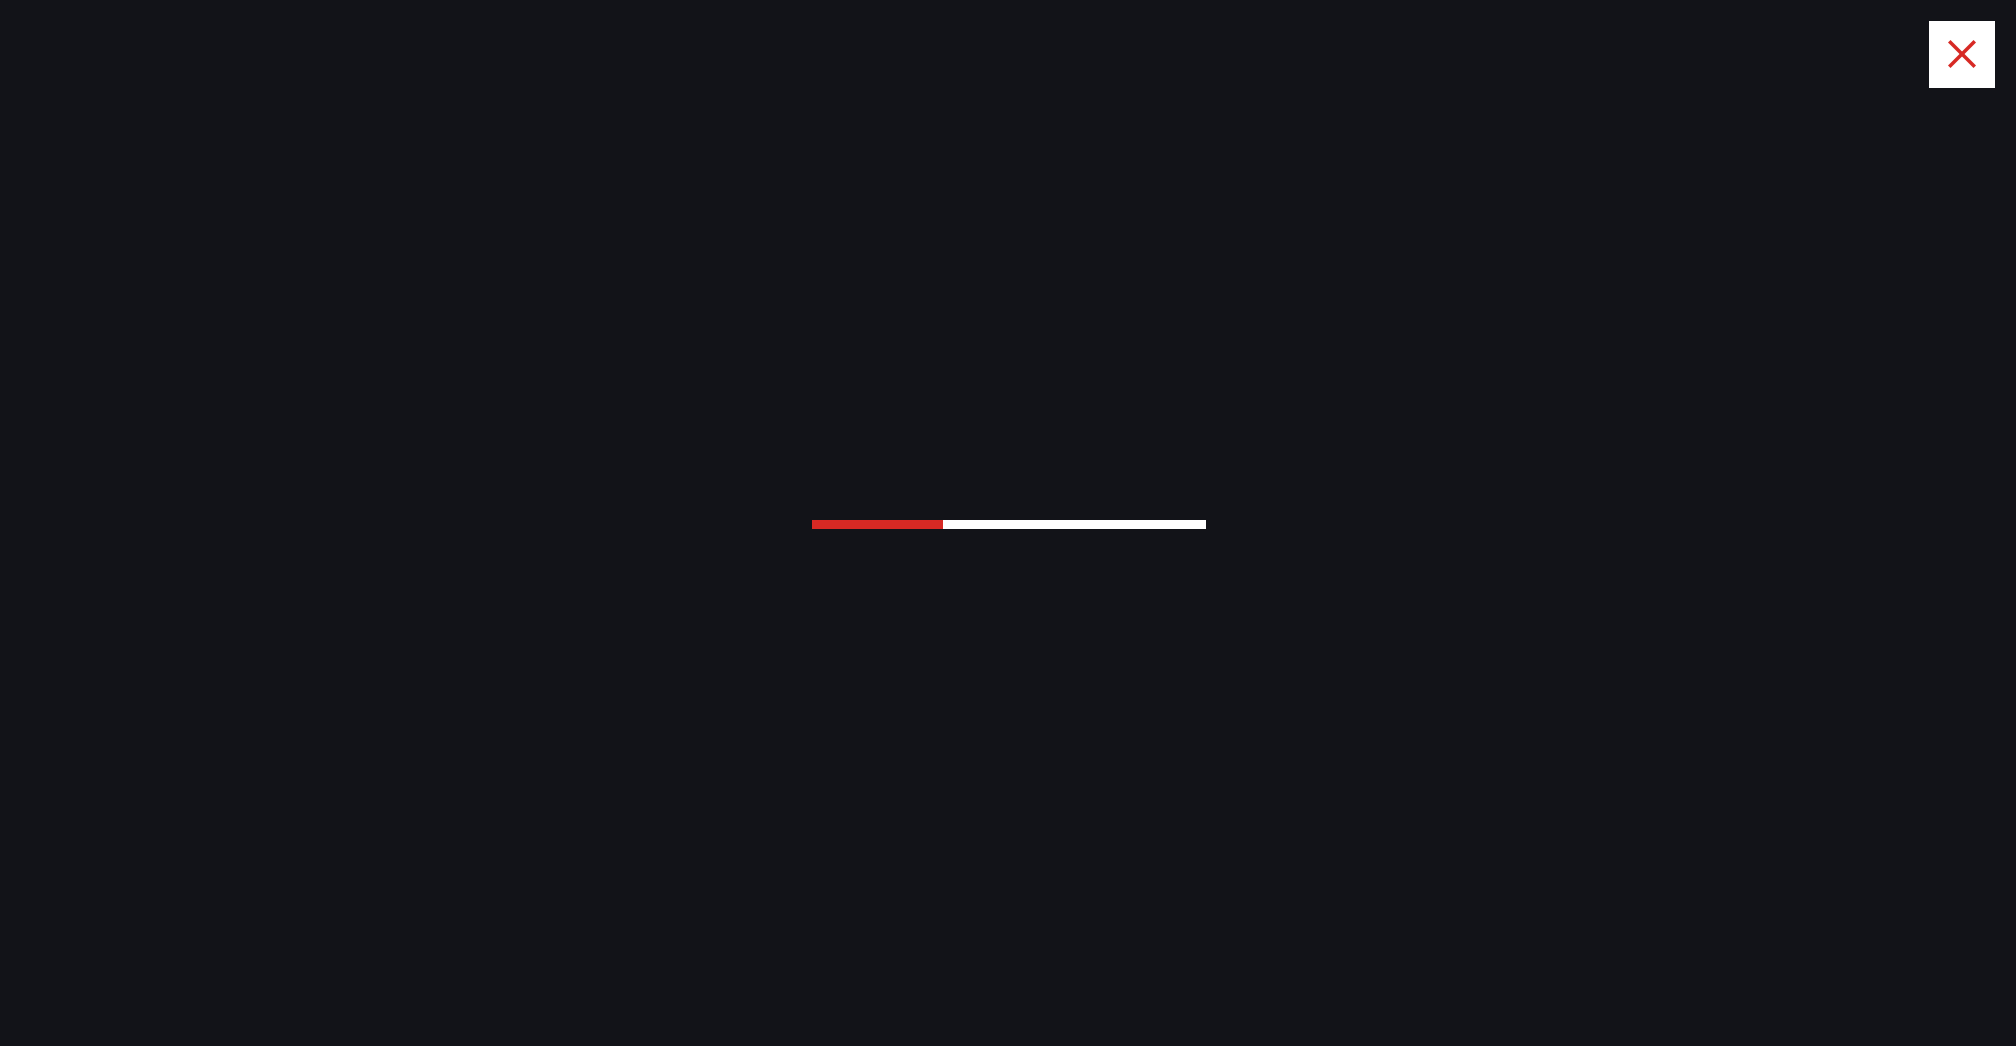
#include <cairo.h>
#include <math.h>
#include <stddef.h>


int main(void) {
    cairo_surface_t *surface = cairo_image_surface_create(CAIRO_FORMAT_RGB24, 2016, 1046);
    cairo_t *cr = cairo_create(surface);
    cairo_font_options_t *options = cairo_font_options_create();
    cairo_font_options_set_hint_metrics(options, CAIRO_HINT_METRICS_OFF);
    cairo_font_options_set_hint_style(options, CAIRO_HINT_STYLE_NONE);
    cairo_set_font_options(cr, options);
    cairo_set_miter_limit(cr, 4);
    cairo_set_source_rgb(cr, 0.071, 0.078, 0.094);
    cairo_paint(cr);
    cairo_set_source_rgb(cr, 1, 1, 1);
    cairo_rectangle(cr, 1929, 21, 66, 67);
    cairo_fill(cr);
    cairo_set_source_rgb(cr, 0.843, 0.161, 0.141);
    cairo_new_path(cr);
    cairo_move_to(cr, 1948, 65.5);
    cairo_line_to(cr, 1973.5, 40);
    cairo_line_to(cr, 1976, 42.5);
    cairo_line_to(cr, 1950.5, 68);
    cairo_close_path(cr);
    cairo_fill(cr);
    cairo_new_path(cr);
    cairo_move_to(cr, 1973.5, 68);
    cairo_line_to(cr, 1948, 42.5);
    cairo_line_to(cr, 1950.5, 40);
    cairo_line_to(cr, 1976, 65.5);
    cairo_close_path(cr);
    cairo_fill(cr);
    cairo_set_source_rgb(cr, 1, 1, 1);
    cairo_rectangle(cr, 943, 520, 263, 9);
    cairo_fill(cr);
    cairo_set_source_rgb(cr, 0.843, 0.161, 0.141);
    cairo_rectangle(cr, 812, 520, 131, 9);
    cairo_fill(cr);
    cairo_surface_write_to_png(surface, "page.png");
    cairo_font_options_destroy(options);
    cairo_destroy(cr);
    cairo_surface_destroy(surface);
    return 0;
}
